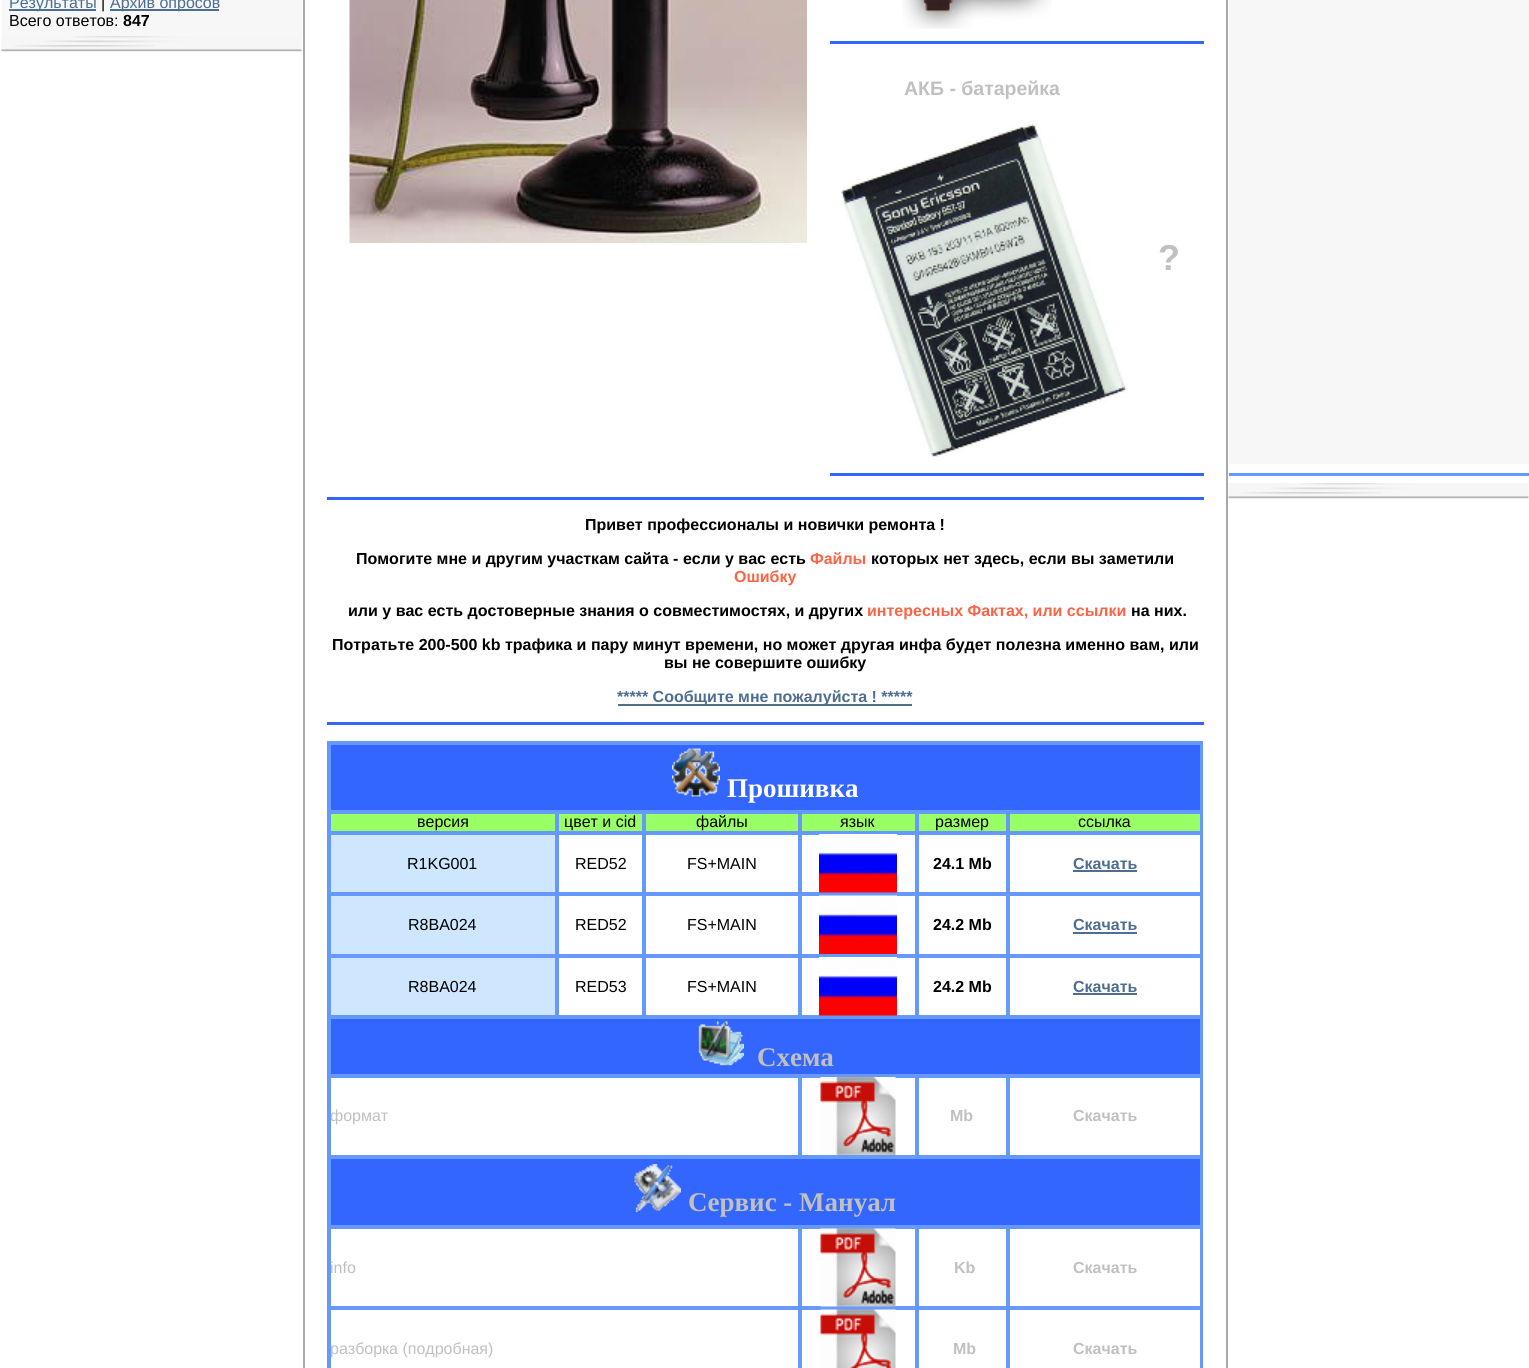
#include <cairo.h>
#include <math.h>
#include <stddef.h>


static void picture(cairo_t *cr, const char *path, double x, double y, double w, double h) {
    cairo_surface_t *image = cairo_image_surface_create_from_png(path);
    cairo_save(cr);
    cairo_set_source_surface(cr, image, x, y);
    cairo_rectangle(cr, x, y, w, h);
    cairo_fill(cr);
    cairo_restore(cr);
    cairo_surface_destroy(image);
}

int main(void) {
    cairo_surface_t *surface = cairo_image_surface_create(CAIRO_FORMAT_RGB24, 1529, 1368);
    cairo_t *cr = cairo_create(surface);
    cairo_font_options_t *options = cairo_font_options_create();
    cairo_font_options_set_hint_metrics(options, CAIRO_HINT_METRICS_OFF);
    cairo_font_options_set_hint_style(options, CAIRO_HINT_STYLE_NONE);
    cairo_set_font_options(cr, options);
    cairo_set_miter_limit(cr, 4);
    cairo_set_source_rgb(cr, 1, 1, 1);
    cairo_paint(cr);
    cairo_set_source_rgb(cr, 0.965, 0.965, 0.965);
    cairo_rectangle(cr, 2, 0, 300, 36);
    cairo_fill(cr);
    cairo_set_source_rgb(cr, 0.302, 0.427, 0.569);
    cairo_rectangle(cr, 9, 9, 87, 2);
    cairo_fill(cr);
    cairo_select_font_face(cr, "Liberation Sans", CAIRO_FONT_SLANT_NORMAL, CAIRO_FONT_WEIGHT_NORMAL);
    cairo_set_font_size(cr, 16);
    cairo_move_to(cr, 9, 8);
    cairo_show_text(cr, "Результаты");
    cairo_set_source_rgb(cr, 0, 0, 0);
    cairo_move_to(cr, 101, 8);
    cairo_show_text(cr, "|");
    cairo_set_source_rgb(cr, 0.302, 0.427, 0.569);
    cairo_rectangle(cr, 110, 9, 109, 2);
    cairo_fill(cr);
    cairo_move_to(cr, 110, 8);
    cairo_show_text(cr, "Архив опросов");
    cairo_set_source_rgb(cr, 0, 0, 0);
    cairo_move_to(cr, 9, 26);
    cairo_show_text(cr, "Всего ответов:");
    cairo_select_font_face(cr, "Liberation Sans", CAIRO_FONT_SLANT_NORMAL, CAIRO_FONT_WEIGHT_BOLD);
    cairo_move_to(cr, 123, 26);
    cairo_show_text(cr, "847");
    picture(cr, "img1.png", 1, 36, 301, 16);
    cairo_set_source_rgb(cr, 0.663, 0.663, 0.663);
    cairo_rectangle(cr, 1226, 0, 2, 1368);
    cairo_fill(cr);
    cairo_rectangle(cr, 303, 0, 2, 1368);
    cairo_fill(cr);
    picture(cr, "img2.png", 349, 0, 458, 243);
    picture(cr, "img3.png", 902, 0, 150, 29);
    cairo_set_source_rgb(cr, 0.2, 0.4, 1);
    cairo_rectangle(cr, 830, 41, 374, 3);
    cairo_fill(cr);
    cairo_set_font_size(cr, 19.5);
    cairo_set_source_rgb(cr, 0.753, 0.753, 0.753);
    cairo_move_to(cr, 904, 95);
    cairo_show_text(cr, "АКБ - батарейка");
    cairo_set_font_size(cr, 36);
    cairo_move_to(cr, 1158, 270);
    cairo_show_text(cr, "?");
    picture(cr, "img4.png", 841, 122, 286, 335);
    cairo_set_source_rgb(cr, 0.2, 0.4, 1);
    cairo_rectangle(cr, 830, 473, 374, 3);
    cairo_fill(cr);
    cairo_rectangle(cr, 327, 497, 877, 3);
    cairo_fill(cr);
    cairo_set_font_size(cr, 16);
    cairo_set_source_rgb(cr, 0, 0, 0);
    cairo_move_to(cr, 585, 530);
    cairo_show_text(cr, "Привет профессионалы и новички ремонта !");
    cairo_move_to(cr, 356, 564);
    cairo_show_text(cr, "Помогите мне и другим участкам сайта - если");
    cairo_move_to(cr, 725, 564);
    cairo_show_text(cr, "у вас есть");
    cairo_set_source_rgb(cr, 0.984, 0.392, 0.267);
    cairo_move_to(cr, 810, 564);
    cairo_show_text(cr, "Файлы");
    cairo_set_source_rgb(cr, 0, 0, 0);
    cairo_move_to(cr, 871, 564);
    cairo_show_text(cr, "которых нет здесь, если вы заметили");
    cairo_set_source_rgb(cr, 0.984, 0.392, 0.267);
    cairo_move_to(cr, 734, 582);
    cairo_show_text(cr, "Ошибку");
    cairo_set_source_rgb(cr, 0, 0, 0);
    cairo_move_to(cr, 348, 616);
    cairo_show_text(cr, "или у вас есть достоверные знания о совместимостях, и других");
    cairo_set_source_rgb(cr, 0.984, 0.392, 0.267);
    cairo_move_to(cr, 867, 616);
    cairo_show_text(cr, "интересных Фактах, или ссылки");
    cairo_set_source_rgb(cr, 0, 0, 0);
    cairo_move_to(cr, 1131, 616);
    cairo_show_text(cr, "на них.");
    cairo_move_to(cr, 332, 650);
    cairo_show_text(cr, "Потратьте 200-500 kb трафика и пару минут времени, но может другая инфа будет полезна именно вам, или");
    cairo_move_to(cr, 664, 668);
    cairo_show_text(cr, "вы не совершите ошибку");
    cairo_set_source_rgb(cr, 0.302, 0.427, 0.569);
    cairo_rectangle(cr, 618, 704, 294, 2);
    cairo_fill(cr);
    cairo_move_to(cr, 617, 702);
    cairo_show_text(cr, "***** Сообщите мне пожалуйста ! *****");
    cairo_set_source_rgb(cr, 0.2, 0.4, 1);
    cairo_rectangle(cr, 327, 722, 877, 3);
    cairo_fill(cr);
    cairo_rectangle(cr, 328, 742, 874, 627);
    cairo_set_source_rgb(cr, 0.4, 0.6, 1);
    cairo_stroke(cr);
    cairo_set_source_rgb(cr, 0.2, 0.4, 1);
    cairo_rectangle(cr, 330, 744, 871, 67);
    cairo_fill_preserve(cr);
    cairo_set_source_rgb(cr, 0.4, 0.6, 1);
    cairo_stroke(cr);
    picture(cr, "img5.png", 672, 748, 48, 49);
    cairo_select_font_face(cr, "Liberation Serif", CAIRO_FONT_SLANT_NORMAL, CAIRO_FONT_WEIGHT_BOLD);
    cairo_set_font_size(cr, 27);
    cairo_set_source_rgb(cr, 1, 1, 1);
    cairo_move_to(cr, 727, 797);
    cairo_show_text(cr, "Прошивка");
    cairo_set_source_rgb(cr, 0.6, 1, 0.4);
    cairo_rectangle(cr, 330, 813, 226, 19);
    cairo_fill_preserve(cr);
    cairo_set_source_rgb(cr, 0.4, 0.6, 1);
    cairo_stroke(cr);
    cairo_select_font_face(cr, "Liberation Sans", CAIRO_FONT_SLANT_NORMAL, CAIRO_FONT_WEIGHT_NORMAL);
    cairo_set_font_size(cr, 16);
    cairo_set_source_rgb(cr, 0, 0, 0);
    cairo_move_to(cr, 417, 827);
    cairo_show_text(cr, "версия");
    cairo_set_source_rgb(cr, 0.6, 1, 0.4);
    cairo_rectangle(cr, 558, 813, 85, 19);
    cairo_fill_preserve(cr);
    cairo_set_source_rgb(cr, 0.4, 0.6, 1);
    cairo_stroke(cr);
    cairo_set_source_rgb(cr, 0, 0, 0);
    cairo_move_to(cr, 564, 827);
    cairo_show_text(cr, "цвет и cid");
    cairo_set_source_rgb(cr, 0.6, 1, 0.4);
    cairo_rectangle(cr, 645, 813, 154, 19);
    cairo_fill_preserve(cr);
    cairo_set_source_rgb(cr, 0.4, 0.6, 1);
    cairo_stroke(cr);
    cairo_set_source_rgb(cr, 0, 0, 0);
    cairo_move_to(cr, 696, 827);
    cairo_show_text(cr, "файлы");
    cairo_set_source_rgb(cr, 0.6, 1, 0.4);
    cairo_rectangle(cr, 801, 813, 115, 19);
    cairo_fill_preserve(cr);
    cairo_set_source_rgb(cr, 0.4, 0.6, 1);
    cairo_stroke(cr);
    cairo_set_source_rgb(cr, 0, 0, 0);
    cairo_move_to(cr, 840, 827);
    cairo_show_text(cr, "язык");
    cairo_set_source_rgb(cr, 0.6, 1, 0.4);
    cairo_rectangle(cr, 918, 813, 89, 19);
    cairo_fill_preserve(cr);
    cairo_set_source_rgb(cr, 0.4, 0.6, 1);
    cairo_stroke(cr);
    cairo_set_source_rgb(cr, 0, 0, 0);
    cairo_move_to(cr, 935, 827);
    cairo_show_text(cr, "размер");
    cairo_set_source_rgb(cr, 0.6, 1, 0.4);
    cairo_rectangle(cr, 1009, 813, 192, 19);
    cairo_fill_preserve(cr);
    cairo_set_source_rgb(cr, 0.4, 0.6, 1);
    cairo_stroke(cr);
    cairo_set_source_rgb(cr, 0, 0, 0);
    cairo_move_to(cr, 1078, 827);
    cairo_show_text(cr, "ссылка");
    cairo_set_source_rgb(cr, 0.808, 0.906, 1);
    cairo_rectangle(cr, 330, 834, 226, 59);
    cairo_fill_preserve(cr);
    cairo_set_source_rgb(cr, 0.4, 0.6, 1);
    cairo_stroke(cr);
    cairo_set_source_rgb(cr, 0, 0, 0);
    cairo_move_to(cr, 407, 869);
    cairo_show_text(cr, "R1KG001");
    cairo_rectangle(cr, 558, 834, 85, 59);
    cairo_set_source_rgb(cr, 0.4, 0.6, 1);
    cairo_stroke(cr);
    cairo_set_source_rgb(cr, 0, 0, 0);
    cairo_move_to(cr, 575, 869);
    cairo_show_text(cr, "RED52");
    cairo_rectangle(cr, 645, 834, 154, 59);
    cairo_set_source_rgb(cr, 0.4, 0.6, 1);
    cairo_stroke(cr);
    cairo_set_source_rgb(cr, 0, 0, 0);
    cairo_move_to(cr, 687, 869);
    cairo_show_text(cr, "FS+MAIN");
    cairo_rectangle(cr, 801, 834, 115, 59);
    cairo_set_source_rgb(cr, 0.4, 0.6, 1);
    cairo_stroke(cr);
    picture(cr, "img6.png", 819, 834, 78, 59);
    cairo_rectangle(cr, 918, 834, 89, 59);
    cairo_stroke(cr);
    cairo_select_font_face(cr, "Liberation Sans", CAIRO_FONT_SLANT_NORMAL, CAIRO_FONT_WEIGHT_BOLD);
    cairo_set_source_rgb(cr, 0, 0, 0);
    cairo_move_to(cr, 933, 869);
    cairo_show_text(cr, "24.1 Mb");
    cairo_rectangle(cr, 1009, 834, 192, 59);
    cairo_set_source_rgb(cr, 0.4, 0.6, 1);
    cairo_stroke(cr);
    cairo_set_source_rgb(cr, 0.302, 0.427, 0.569);
    cairo_move_to(cr, 1073, 869);
    cairo_show_text(cr, "Скачать");
    cairo_rectangle(cr, 1073, 870, 64, 2);
    cairo_fill(cr);
    cairo_set_source_rgb(cr, 0.808, 0.906, 1);
    cairo_rectangle(cr, 330, 895, 226, 60);
    cairo_fill_preserve(cr);
    cairo_set_source_rgb(cr, 0.4, 0.6, 1);
    cairo_stroke(cr);
    cairo_select_font_face(cr, "Liberation Sans", CAIRO_FONT_SLANT_NORMAL, CAIRO_FONT_WEIGHT_NORMAL);
    cairo_set_source_rgb(cr, 0, 0, 0);
    cairo_move_to(cr, 408, 930);
    cairo_show_text(cr, "R8BA024");
    cairo_rectangle(cr, 558, 895, 85, 60);
    cairo_set_source_rgb(cr, 0.4, 0.6, 1);
    cairo_stroke(cr);
    cairo_set_source_rgb(cr, 0, 0, 0);
    cairo_move_to(cr, 575, 930);
    cairo_show_text(cr, "RED52");
    cairo_rectangle(cr, 645, 895, 154, 60);
    cairo_set_source_rgb(cr, 0.4, 0.6, 1);
    cairo_stroke(cr);
    cairo_set_source_rgb(cr, 0, 0, 0);
    cairo_move_to(cr, 687, 930);
    cairo_show_text(cr, "FS+MAIN");
    cairo_rectangle(cr, 801, 895, 115, 60);
    cairo_set_source_rgb(cr, 0.4, 0.6, 1);
    cairo_stroke(cr);
    picture(cr, "img7.png", 819, 895, 78, 59);
    cairo_rectangle(cr, 918, 895, 89, 60);
    cairo_stroke(cr);
    cairo_select_font_face(cr, "Liberation Sans", CAIRO_FONT_SLANT_NORMAL, CAIRO_FONT_WEIGHT_BOLD);
    cairo_set_source_rgb(cr, 0, 0, 0);
    cairo_move_to(cr, 933, 930);
    cairo_show_text(cr, "24.2 Mb");
    cairo_rectangle(cr, 1009, 895, 192, 60);
    cairo_set_source_rgb(cr, 0.4, 0.6, 1);
    cairo_stroke(cr);
    cairo_set_source_rgb(cr, 0.302, 0.427, 0.569);
    cairo_move_to(cr, 1073, 930);
    cairo_show_text(cr, "Скачать");
    cairo_rectangle(cr, 1073, 932, 64, 2);
    cairo_fill(cr);
    cairo_set_source_rgb(cr, 0.808, 0.906, 1);
    cairo_rectangle(cr, 330, 957, 226, 59);
    cairo_fill_preserve(cr);
    cairo_set_source_rgb(cr, 0.4, 0.6, 1);
    cairo_stroke(cr);
    cairo_select_font_face(cr, "Liberation Sans", CAIRO_FONT_SLANT_NORMAL, CAIRO_FONT_WEIGHT_NORMAL);
    cairo_set_source_rgb(cr, 0, 0, 0);
    cairo_move_to(cr, 408, 992);
    cairo_show_text(cr, "R8BA024");
    cairo_rectangle(cr, 558, 957, 85, 59);
    cairo_set_source_rgb(cr, 0.4, 0.6, 1);
    cairo_stroke(cr);
    cairo_set_source_rgb(cr, 0, 0, 0);
    cairo_move_to(cr, 575, 992);
    cairo_show_text(cr, "RED53");
    cairo_rectangle(cr, 645, 957, 154, 59);
    cairo_set_source_rgb(cr, 0.4, 0.6, 1);
    cairo_stroke(cr);
    cairo_set_source_rgb(cr, 0, 0, 0);
    cairo_move_to(cr, 687, 992);
    cairo_show_text(cr, "FS+MAIN");
    cairo_rectangle(cr, 801, 957, 115, 59);
    cairo_set_source_rgb(cr, 0.4, 0.6, 1);
    cairo_stroke(cr);
    picture(cr, "img6.png", 819, 957, 78, 59);
    cairo_rectangle(cr, 918, 957, 89, 59);
    cairo_stroke(cr);
    cairo_select_font_face(cr, "Liberation Sans", CAIRO_FONT_SLANT_NORMAL, CAIRO_FONT_WEIGHT_BOLD);
    cairo_set_source_rgb(cr, 0, 0, 0);
    cairo_move_to(cr, 933, 992);
    cairo_show_text(cr, "24.2 Mb");
    cairo_rectangle(cr, 1009, 957, 192, 59);
    cairo_set_source_rgb(cr, 0.4, 0.6, 1);
    cairo_stroke(cr);
    cairo_set_source_rgb(cr, 0.302, 0.427, 0.569);
    cairo_move_to(cr, 1073, 992);
    cairo_show_text(cr, "Скачать");
    cairo_rectangle(cr, 1073, 993, 64, 2);
    cairo_fill(cr);
    cairo_set_source_rgb(cr, 0.2, 0.4, 1);
    cairo_rectangle(cr, 330, 1018, 871, 57);
    cairo_fill_preserve(cr);
    cairo_set_source_rgb(cr, 0.4, 0.6, 1);
    cairo_stroke(cr);
    picture(cr, "img8.png", 698, 1021, 46, 45);
    cairo_select_font_face(cr, "Liberation Serif", CAIRO_FONT_SLANT_NORMAL, CAIRO_FONT_WEIGHT_BOLD);
    cairo_set_font_size(cr, 27);
    cairo_set_source_rgb(cr, 0.753, 0.753, 0.753);
    cairo_move_to(cr, 757, 1066);
    cairo_show_text(cr, "Схема");
    cairo_rectangle(cr, 330, 1077, 469, 79);
    cairo_set_source_rgb(cr, 0.4, 0.6, 1);
    cairo_stroke(cr);
    cairo_select_font_face(cr, "Liberation Sans", CAIRO_FONT_SLANT_NORMAL, CAIRO_FONT_WEIGHT_NORMAL);
    cairo_set_font_size(cr, 16);
    cairo_set_source_rgb(cr, 0.753, 0.753, 0.753);
    cairo_move_to(cr, 330, 1121);
    cairo_show_text(cr, "формат");
    cairo_rectangle(cr, 801, 1077, 115, 79);
    cairo_set_source_rgb(cr, 0.4, 0.6, 1);
    cairo_stroke(cr);
    picture(cr, "img9.png", 820, 1077, 76, 78);
    cairo_rectangle(cr, 918, 1077, 89, 79);
    cairo_stroke(cr);
    cairo_select_font_face(cr, "Liberation Sans", CAIRO_FONT_SLANT_NORMAL, CAIRO_FONT_WEIGHT_BOLD);
    cairo_set_source_rgb(cr, 0.753, 0.753, 0.753);
    cairo_move_to(cr, 950, 1121);
    cairo_show_text(cr, "Mb");
    cairo_rectangle(cr, 1009, 1077, 192, 79);
    cairo_set_source_rgb(cr, 0.4, 0.6, 1);
    cairo_stroke(cr);
    cairo_set_source_rgb(cr, 0.753, 0.753, 0.753);
    cairo_move_to(cr, 1073, 1121);
    cairo_show_text(cr, "Скачать");
    cairo_set_source_rgb(cr, 0.2, 0.4, 1);
    cairo_rectangle(cr, 330, 1158, 871, 68);
    cairo_fill_preserve(cr);
    cairo_set_source_rgb(cr, 0.4, 0.6, 1);
    cairo_stroke(cr);
    picture(cr, "img10.png", 634, 1164, 47, 48);
    cairo_select_font_face(cr, "Liberation Serif", CAIRO_FONT_SLANT_NORMAL, CAIRO_FONT_WEIGHT_BOLD);
    cairo_set_font_size(cr, 27);
    cairo_set_source_rgb(cr, 0.753, 0.753, 0.753);
    cairo_move_to(cr, 688, 1211);
    cairo_show_text(cr, "Сервис - Мануал");
    cairo_rectangle(cr, 330, 1228, 469, 79);
    cairo_set_source_rgb(cr, 0.4, 0.6, 1);
    cairo_stroke(cr);
    cairo_select_font_face(cr, "Liberation Sans", CAIRO_FONT_SLANT_NORMAL, CAIRO_FONT_WEIGHT_NORMAL);
    cairo_set_font_size(cr, 16);
    cairo_set_source_rgb(cr, 0.753, 0.753, 0.753);
    cairo_move_to(cr, 330, 1273);
    cairo_show_text(cr, "info");
    cairo_rectangle(cr, 801, 1228, 115, 79);
    cairo_set_source_rgb(cr, 0.4, 0.6, 1);
    cairo_stroke(cr);
    picture(cr, "img11.png", 820, 1228, 76, 79);
    cairo_rectangle(cr, 918, 1228, 89, 79);
    cairo_stroke(cr);
    cairo_select_font_face(cr, "Liberation Sans", CAIRO_FONT_SLANT_NORMAL, CAIRO_FONT_WEIGHT_BOLD);
    cairo_set_source_rgb(cr, 0.753, 0.753, 0.753);
    cairo_move_to(cr, 954, 1273);
    cairo_show_text(cr, "Kb");
    cairo_rectangle(cr, 1009, 1228, 192, 79);
    cairo_set_source_rgb(cr, 0.4, 0.6, 1);
    cairo_stroke(cr);
    cairo_set_source_rgb(cr, 0.753, 0.753, 0.753);
    cairo_move_to(cr, 1073, 1273);
    cairo_show_text(cr, "Скачать");
    cairo_rectangle(cr, 330, 1309, 469, 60);
    cairo_set_source_rgb(cr, 0.4, 0.6, 1);
    cairo_stroke(cr);
    cairo_select_font_face(cr, "Liberation Sans", CAIRO_FONT_SLANT_NORMAL, CAIRO_FONT_WEIGHT_NORMAL);
    cairo_set_source_rgb(cr, 0.753, 0.753, 0.753);
    cairo_move_to(cr, 330, 1354);
    cairo_show_text(cr, "разборка (подробная)");
    cairo_rectangle(cr, 801, 1309, 115, 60);
    cairo_set_source_rgb(cr, 0.4, 0.6, 1);
    cairo_stroke(cr);
    picture(cr, "img12.png", 820, 1309, 76, 59);
    cairo_rectangle(cr, 918, 1309, 89, 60);
    cairo_stroke(cr);
    cairo_select_font_face(cr, "Liberation Sans", CAIRO_FONT_SLANT_NORMAL, CAIRO_FONT_WEIGHT_BOLD);
    cairo_set_source_rgb(cr, 0.753, 0.753, 0.753);
    cairo_move_to(cr, 953, 1354);
    cairo_show_text(cr, "Mb");
    cairo_rectangle(cr, 1009, 1309, 192, 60);
    cairo_set_source_rgb(cr, 0.4, 0.6, 1);
    cairo_stroke(cr);
    cairo_set_source_rgb(cr, 0.753, 0.753, 0.753);
    cairo_move_to(cr, 1073, 1354);
    cairo_show_text(cr, "Скачать");
    cairo_set_source_rgb(cr, 0.965, 0.965, 0.965);
    cairo_rectangle(cr, 1229, 0, 300, 464);
    cairo_fill(cr);
    cairo_set_source_rgb(cr, 0.4, 0.6, 1);
    cairo_rectangle(cr, 1229, 473, 300, 3);
    cairo_fill(cr);
    picture(cr, "img1.png", 1228, 483, 301, 16);
    cairo_surface_write_to_png(surface, "page.png");
    cairo_font_options_destroy(options);
    cairo_destroy(cr);
    cairo_surface_destroy(surface);
    return 0;
}
